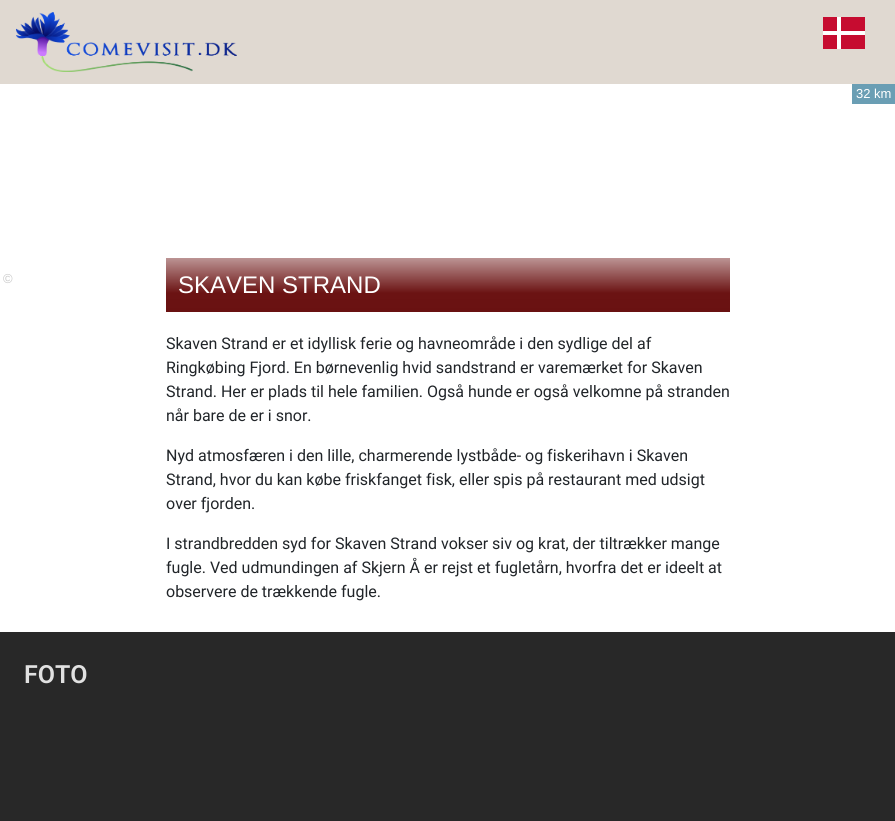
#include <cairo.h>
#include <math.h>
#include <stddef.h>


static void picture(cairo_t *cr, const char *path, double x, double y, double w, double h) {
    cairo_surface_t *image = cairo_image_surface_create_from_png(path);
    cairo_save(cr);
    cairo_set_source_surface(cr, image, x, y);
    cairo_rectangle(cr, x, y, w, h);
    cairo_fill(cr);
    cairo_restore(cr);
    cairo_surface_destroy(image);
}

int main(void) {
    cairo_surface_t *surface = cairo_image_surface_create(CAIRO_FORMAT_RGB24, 895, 821);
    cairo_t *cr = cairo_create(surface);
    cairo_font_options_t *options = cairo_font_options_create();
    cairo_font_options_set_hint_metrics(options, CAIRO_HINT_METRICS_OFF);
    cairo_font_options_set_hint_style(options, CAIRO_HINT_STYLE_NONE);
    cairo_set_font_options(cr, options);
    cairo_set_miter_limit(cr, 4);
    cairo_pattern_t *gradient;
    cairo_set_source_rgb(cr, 1, 1, 1);
    cairo_paint(cr);
    cairo_set_source_rgb(cr, 0.878, 0.851, 0.82);
    cairo_rectangle(cr, 0, 0, 895, 84);
    cairo_fill(cr);
    picture(cr, "img1.png", 16, 12, 221, 60);
    cairo_set_source_rgb(cr, 0.776, 0.047, 0.188);
    cairo_rectangle(cr, 823, 17, 42, 32);
    cairo_fill(cr);
    cairo_set_source_rgb(cr, 1, 1, 1);
    cairo_new_path(cr);
    cairo_move_to(cr, 823, 31);
    cairo_line_to(cr, 837, 31);
    cairo_line_to(cr, 837, 17);
    cairo_line_to(cr, 841, 17);
    cairo_line_to(cr, 841, 31);
    cairo_line_to(cr, 865, 31);
    cairo_line_to(cr, 865, 35);
    cairo_line_to(cr, 841, 35);
    cairo_line_to(cr, 841, 49);
    cairo_line_to(cr, 837, 49);
    cairo_line_to(cr, 837, 35);
    cairo_line_to(cr, 823, 35);
    cairo_close_path(cr);
    cairo_fill(cr);
    cairo_set_source_rgb(cr, 0.416, 0.62, 0.706);
    cairo_rectangle(cr, 852, 84, 43, 20);
    cairo_fill(cr);
    cairo_select_font_face(cr, "Liberation Sans", CAIRO_FONT_SLANT_NORMAL, CAIRO_FONT_WEIGHT_NORMAL);
    cairo_set_font_size(cr, 13);
    cairo_set_source_rgb(cr, 1, 1, 1);
    cairo_move_to(cr, 856, 98);
    cairo_show_text(cr, "32 km");
    cairo_set_source_rgb(cr, 0.784, 0.784, 0.784);
    cairo_move_to(cr, 3, 283);
    cairo_show_text(cr, "©");
    gradient = cairo_pattern_create_linear(448, 312, 448, 258);
    cairo_pattern_add_color_stop_rgba(gradient, 0, 0.412, 0.067, 0.067, 1);
    cairo_pattern_add_color_stop_rgba(gradient, 0.35, 0.42, 0.075, 0.075, 1);
    cairo_pattern_add_color_stop_rgba(gradient, 1, 0.737, 0.58, 0.58, 1);
    cairo_set_source(cr, gradient);
    cairo_pattern_destroy(gradient);
    cairo_rectangle(cr, 166, 258, 564, 54);
    cairo_fill(cr);
    cairo_set_font_size(cr, 24);
    cairo_set_source_rgb(cr, 1, 1, 1);
    cairo_move_to(cr, 178, 293);
    cairo_show_text(cr, "SKAVEN STRAND");
    cairo_select_font_face(cr, "Roboto", CAIRO_FONT_SLANT_NORMAL, CAIRO_FONT_WEIGHT_NORMAL);
    cairo_set_font_size(cr, 16);
    cairo_set_source_rgb(cr, 0.129, 0.145, 0.161);
    cairo_move_to(cr, 166, 349);
    cairo_show_text(cr, "Skaven Strand er et idyllisk ferie og havneområde i den sydlige del af");
    cairo_move_to(cr, 166, 373);
    cairo_show_text(cr, "Ringkøbing Fjord. En børnevenlig hvid sandstrand er varemærket for Skaven");
    cairo_move_to(cr, 166, 397);
    cairo_show_text(cr, "Strand. Her er plads til hele familien. Også hunde er også velkomne på stranden");
    cairo_move_to(cr, 166, 421);
    cairo_show_text(cr, "når bare de er i snor.");
    cairo_move_to(cr, 166, 461);
    cairo_show_text(cr, "Nyd atmosfæren i den lille, charmerende lystbåde- og fiskerihavn i Skaven");
    cairo_move_to(cr, 166, 485);
    cairo_show_text(cr, "Strand, hvor du kan købe friskfanget fisk, eller spis på restaurant med udsigt");
    cairo_move_to(cr, 166, 509);
    cairo_show_text(cr, "over fjorden.");
    cairo_move_to(cr, 166, 549);
    cairo_show_text(cr, "I strandbredden syd for Skaven Strand vokser siv og krat, der tiltrækker mange");
    cairo_move_to(cr, 166, 573);
    cairo_show_text(cr, "fugle. Ved udmundingen af Skjern Å er rejst et fugletårn, hvorfra det er ideelt at");
    cairo_move_to(cr, 166, 597);
    cairo_show_text(cr, "observere de trækkende fugle.");
    cairo_set_source_rgb(cr, 0.157, 0.157, 0.157);
    cairo_rectangle(cr, 0, 632, 895, 189);
    cairo_fill(cr);
    cairo_select_font_face(cr, "Roboto SemiBold", CAIRO_FONT_SLANT_NORMAL, CAIRO_FONT_WEIGHT_NORMAL);
    cairo_set_font_size(cr, 25);
    cairo_set_source_rgb(cr, 0.882, 0.882, 0.882);
    cairo_move_to(cr, 24, 683);
    cairo_show_text(cr, "FOTO");
    cairo_surface_write_to_png(surface, "page.png");
    cairo_font_options_destroy(options);
    cairo_destroy(cr);
    cairo_surface_destroy(surface);
    return 0;
}
